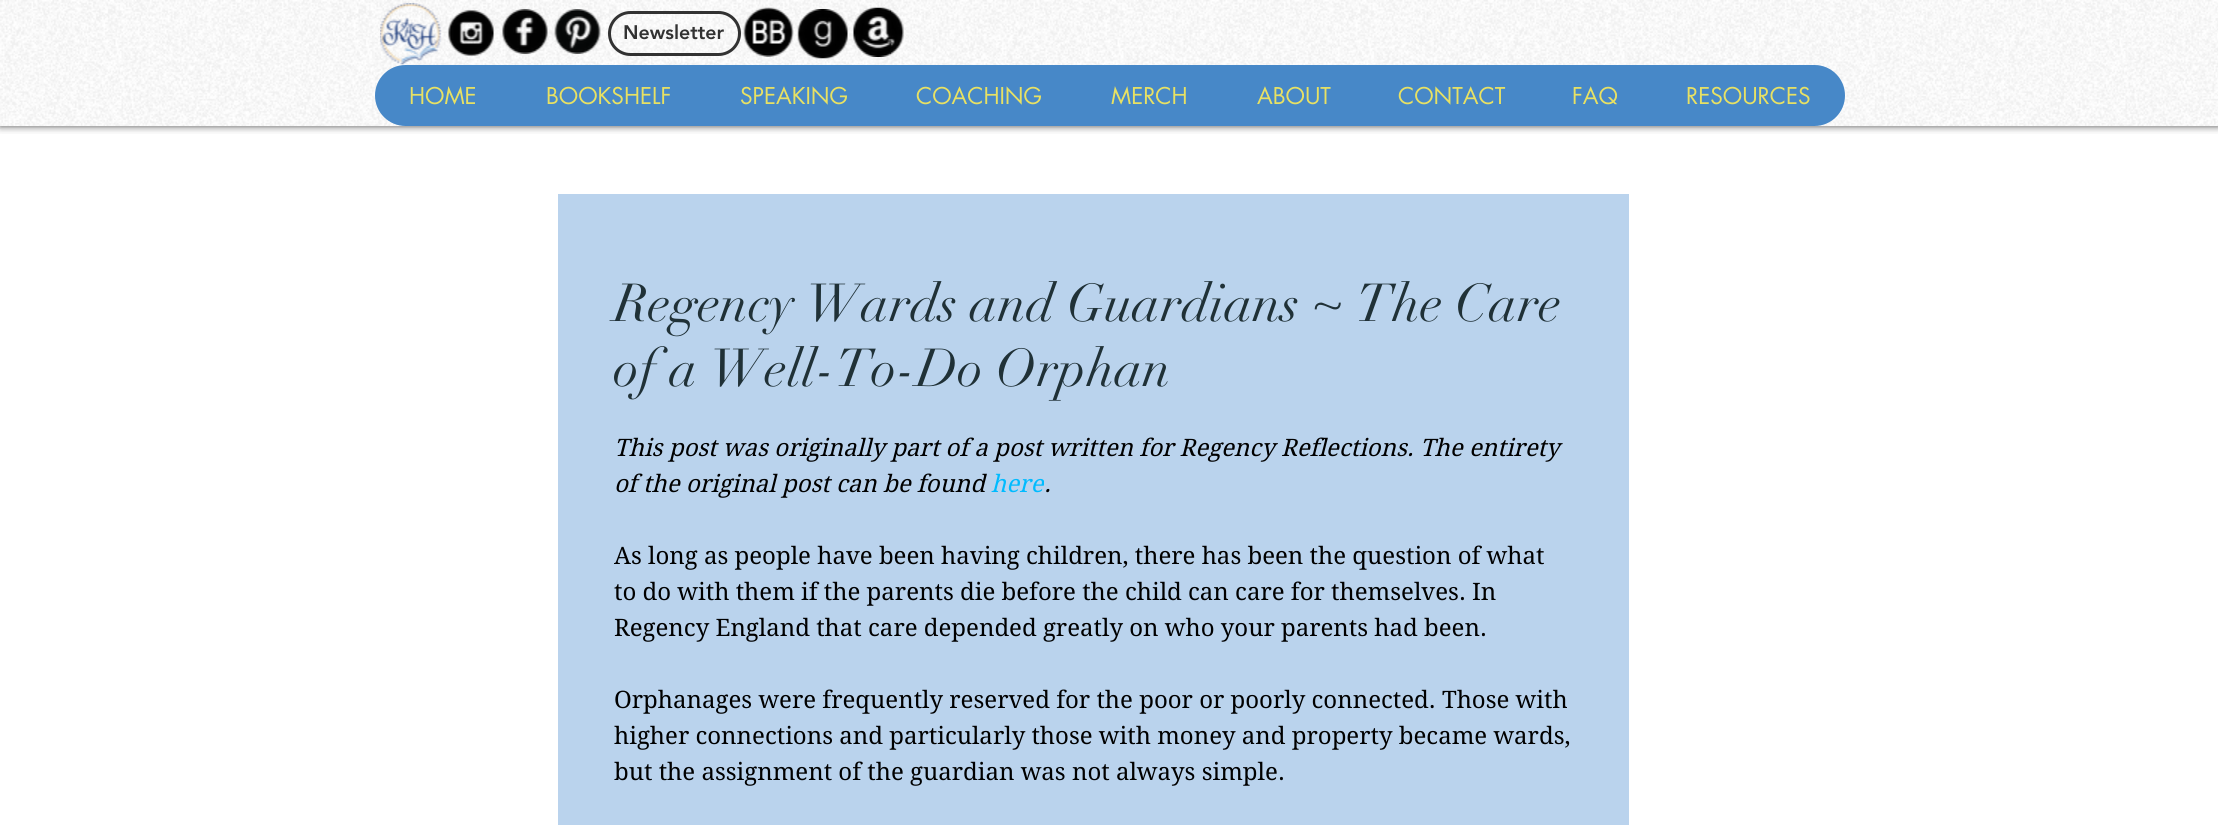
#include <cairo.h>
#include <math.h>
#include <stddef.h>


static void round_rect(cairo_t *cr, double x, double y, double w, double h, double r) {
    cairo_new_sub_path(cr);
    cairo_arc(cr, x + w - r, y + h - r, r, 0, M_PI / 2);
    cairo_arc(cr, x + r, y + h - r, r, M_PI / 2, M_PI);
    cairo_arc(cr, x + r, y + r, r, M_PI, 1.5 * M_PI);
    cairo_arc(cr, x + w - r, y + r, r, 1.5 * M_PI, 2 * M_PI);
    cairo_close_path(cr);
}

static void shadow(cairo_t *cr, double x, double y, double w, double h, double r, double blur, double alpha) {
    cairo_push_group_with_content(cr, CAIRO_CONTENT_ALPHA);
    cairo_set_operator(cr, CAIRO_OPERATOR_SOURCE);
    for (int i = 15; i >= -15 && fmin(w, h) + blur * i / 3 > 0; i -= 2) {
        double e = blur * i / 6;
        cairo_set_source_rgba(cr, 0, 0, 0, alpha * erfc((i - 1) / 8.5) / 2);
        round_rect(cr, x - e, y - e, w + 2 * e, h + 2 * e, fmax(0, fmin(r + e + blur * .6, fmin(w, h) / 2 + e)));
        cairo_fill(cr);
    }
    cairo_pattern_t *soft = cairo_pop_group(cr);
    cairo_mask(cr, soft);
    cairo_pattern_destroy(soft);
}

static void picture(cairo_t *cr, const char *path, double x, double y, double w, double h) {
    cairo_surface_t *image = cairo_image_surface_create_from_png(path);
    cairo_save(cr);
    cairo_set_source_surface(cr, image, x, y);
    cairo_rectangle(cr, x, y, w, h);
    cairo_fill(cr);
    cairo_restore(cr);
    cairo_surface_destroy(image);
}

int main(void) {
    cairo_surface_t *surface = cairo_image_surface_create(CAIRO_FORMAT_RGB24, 2218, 825);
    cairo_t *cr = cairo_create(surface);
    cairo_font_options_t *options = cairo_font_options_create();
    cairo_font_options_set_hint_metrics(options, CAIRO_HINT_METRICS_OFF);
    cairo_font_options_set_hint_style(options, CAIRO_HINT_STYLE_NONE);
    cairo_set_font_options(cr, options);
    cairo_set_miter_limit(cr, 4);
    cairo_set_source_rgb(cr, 1, 1, 1);
    cairo_paint(cr);
    cairo_save(cr);
    cairo_rectangle(cr, 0, 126, 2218, 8);
    cairo_clip(cr);
    cairo_set_source_rgb(cr, 0, 0, 0);
    shadow(cr, 0, 0, 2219, 126, 0, 4, 0.7);
    cairo_restore(cr);
    picture(cr, "img1.png", 0, 0, 2218, 126);
    picture(cr, "img2.png", 380, 3, 62, 62);
    picture(cr, "img3.png", 448, 10, 46, 46);
    picture(cr, "img4.png", 502, 9, 46, 45);
    picture(cr, "img5.png", 554, 9, 47, 45);
    round_rect(cr, 609.5, 12.5, 130, 42, 21);
    cairo_set_source_rgb(cr, 0.196, 0.196, 0.196);
    cairo_set_line_width(cr, 3);
    cairo_stroke(cr);
    cairo_select_font_face(cr, "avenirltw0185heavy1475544 Black", CAIRO_FONT_SLANT_NORMAL, CAIRO_FONT_WEIGHT_NORMAL);
    cairo_set_font_size(cr, 19.5);
    cairo_move_to(cr, 623, 39);
    cairo_show_text(cr, "Newsletter");
    picture(cr, "img6.png", 743, 7, 51, 50);
    picture(cr, "img7.png", 797, 9, 51, 50);
    picture(cr, "img8.png", 853, 7, 51, 50);
    cairo_set_source_rgb(cr, 0.278, 0.533, 0.784);
    round_rect(cr, 375, 65, 1470, 61, 30.5);
    cairo_fill(cr);
    cairo_select_font_face(cr, "futura", CAIRO_FONT_SLANT_NORMAL, CAIRO_FONT_WEIGHT_NORMAL);
    cairo_set_font_size(cr, 22.5);
    cairo_set_source_rgb(cr, 0.91, 0.882, 0.388);
    cairo_move_to(cr, 409, 104);
    cairo_show_text(cr, "HOME");
    cairo_move_to(cr, 546, 104);
    cairo_show_text(cr, "BOOKSHELF");
    cairo_move_to(cr, 740, 104);
    cairo_show_text(cr, "SPEAKING");
    cairo_move_to(cr, 916, 104);
    cairo_show_text(cr, "COACHING");
    cairo_move_to(cr, 1111, 104);
    cairo_show_text(cr, "MERCH");
    cairo_move_to(cr, 1257, 104);
    cairo_show_text(cr, "ABOUT");
    cairo_move_to(cr, 1398, 104);
    cairo_show_text(cr, "CONTACT");
    cairo_move_to(cr, 1572, 104);
    cairo_show_text(cr, "FAQ");
    cairo_move_to(cr, 1686, 104);
    cairo_show_text(cr, "RESOURCES");
    cairo_set_source_rgb(cr, 0.729, 0.827, 0.929);
    cairo_rectangle(cr, 558, 194, 1071, 631);
    cairo_fill(cr);
    cairo_select_font_face(cr, "didot", CAIRO_FONT_SLANT_NORMAL, CAIRO_FONT_WEIGHT_NORMAL);
    cairo_set_font_size(cr, 52.5);
    cairo_set_source_rgb(cr, 0.125, 0.192, 0.216);
    cairo_move_to(cr, 614, 321);
    cairo_show_text(cr, "Regency Wards and Guardians ~ The Care");
    cairo_move_to(cr, 614, 386);
    cairo_show_text(cr, "of a Well-To-Do Orphan");
    cairo_select_font_face(cr, "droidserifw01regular", CAIRO_FONT_SLANT_ITALIC, CAIRO_FONT_WEIGHT_NORMAL);
    cairo_set_font_size(cr, 24);
    cairo_set_source_rgb(cr, 0, 0, 0);
    cairo_move_to(cr, 614, 456);
    cairo_show_text(cr, "This post was originally part of a post written for Regency Reflections. The entirety");
    cairo_move_to(cr, 614, 492);
    cairo_show_text(cr, "of the original post can be found");
    cairo_set_source_rgb(cr, 0, 0.733, 1);
    cairo_move_to(cr, 991, 492);
    cairo_show_text(cr, "here");
    cairo_set_source_rgb(cr, 0, 0, 0);
    cairo_move_to(cr, 1044, 492);
    cairo_show_text(cr, ".");
    cairo_select_font_face(cr, "droidserifw01regular", CAIRO_FONT_SLANT_NORMAL, CAIRO_FONT_WEIGHT_NORMAL);
    cairo_move_to(cr, 614, 564);
    cairo_show_text(cr, "As long as people have been having children, there has been the question of what");
    cairo_move_to(cr, 614, 600);
    cairo_show_text(cr, "to do with them if the parents die before the child can care for themselves. In");
    cairo_move_to(cr, 614, 636);
    cairo_show_text(cr, "Regency England that care depended greatly on who your parents had been.");
    cairo_move_to(cr, 614, 708);
    cairo_show_text(cr, "Orphanages were frequently reserved for the poor or poorly connected. Those with");
    cairo_move_to(cr, 614, 744);
    cairo_show_text(cr, "higher connections and particularly those with money and property became wards,");
    cairo_move_to(cr, 614, 780);
    cairo_show_text(cr, "but the assignment of the guardian was not always simple.");
    cairo_surface_write_to_png(surface, "page.png");
    cairo_font_options_destroy(options);
    cairo_destroy(cr);
    cairo_surface_destroy(surface);
    return 0;
}
